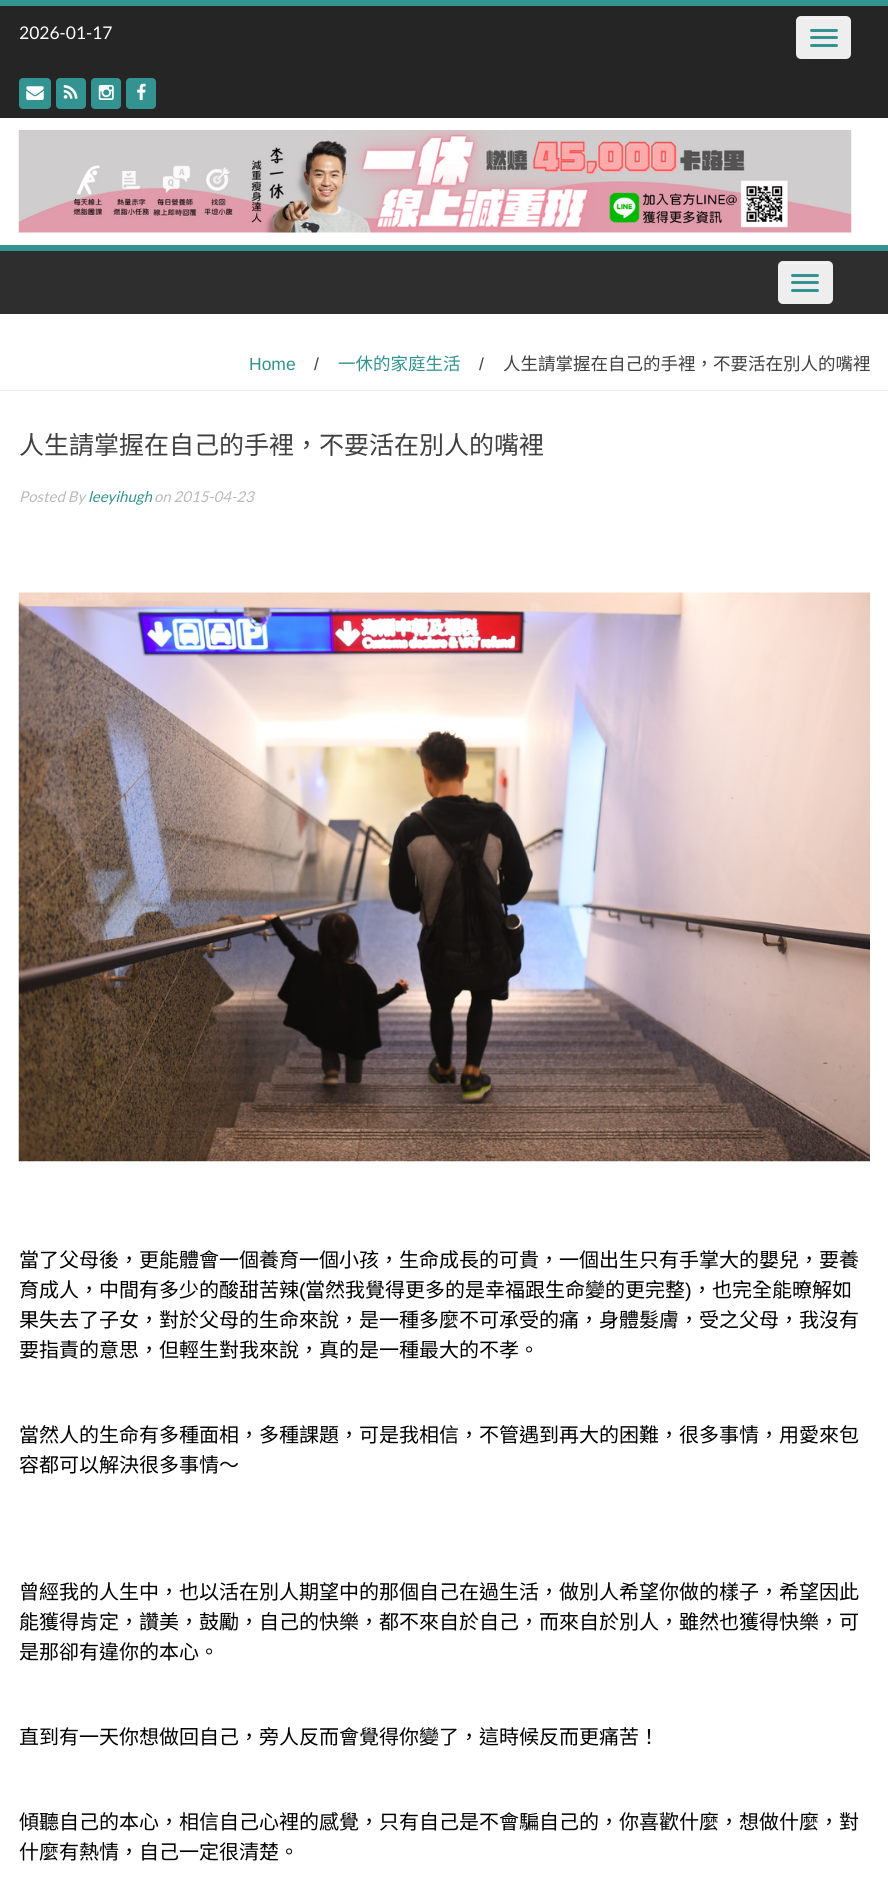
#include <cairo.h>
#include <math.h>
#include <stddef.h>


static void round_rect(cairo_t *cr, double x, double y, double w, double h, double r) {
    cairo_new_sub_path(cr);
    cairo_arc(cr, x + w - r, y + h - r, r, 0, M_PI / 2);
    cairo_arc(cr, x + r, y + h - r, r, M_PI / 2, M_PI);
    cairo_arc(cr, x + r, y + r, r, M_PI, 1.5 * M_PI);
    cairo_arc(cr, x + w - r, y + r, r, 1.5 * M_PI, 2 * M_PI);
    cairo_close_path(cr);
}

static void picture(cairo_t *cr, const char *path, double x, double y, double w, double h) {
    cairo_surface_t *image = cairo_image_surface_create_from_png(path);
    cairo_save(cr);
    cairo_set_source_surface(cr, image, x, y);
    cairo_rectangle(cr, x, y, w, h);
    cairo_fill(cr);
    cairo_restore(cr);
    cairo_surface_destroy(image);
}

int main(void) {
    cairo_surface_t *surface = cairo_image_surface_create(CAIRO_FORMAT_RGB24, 888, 1891);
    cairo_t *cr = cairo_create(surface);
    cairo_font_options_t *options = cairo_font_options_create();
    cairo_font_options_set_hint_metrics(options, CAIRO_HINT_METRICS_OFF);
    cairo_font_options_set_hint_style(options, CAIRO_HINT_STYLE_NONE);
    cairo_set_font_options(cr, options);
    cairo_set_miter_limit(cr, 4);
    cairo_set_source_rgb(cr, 1, 1, 1);
    cairo_paint(cr);
    cairo_set_source_rgb(cr, 0.145, 0.145, 0.145);
    cairo_rectangle(cr, 0, 6, 888, 112);
    cairo_fill(cr);
    cairo_set_source_rgb(cr, 0.2, 0.576, 0.565);
    cairo_rectangle(cr, 0, 0, 888, 6);
    cairo_fill(cr);
    cairo_select_font_face(cr, "Lato", CAIRO_FONT_SLANT_NORMAL, CAIRO_FONT_WEIGHT_NORMAL);
    cairo_set_font_size(cr, 17.5);
    cairo_set_source_rgb(cr, 1, 1, 1);
    cairo_move_to(cr, 19, 39);
    cairo_show_text(cr, "2026-01-17");
    cairo_set_source_rgb(cr, 0.933, 0.933, 0.933);
    round_rect(cr, 796, 16, 55, 43, 5);
    cairo_fill(cr);
    cairo_set_source_rgb(cr, 0.969, 0.969, 0.969);
    cairo_new_path(cr);
    cairo_move_to(cr, 801, 19);
    cairo_line_to(cr, 846, 19);
    cairo_curve_to(cr, 848, 19, 850, 20, 850, 22);
    cairo_curve_to(cr, 850, 20, 848, 18, 846, 18);
    cairo_line_to(cr, 802, 18);
    cairo_curve_to(cr, 801, 18, 799, 19, 799, 20);
    cairo_close_path(cr);
    cairo_fill(cr);
    cairo_set_source_rgb(cr, 0.2, 0.576, 0.565);
    round_rect(cr, 810, 29, 28, 3, 1.5);
    cairo_fill(cr);
    round_rect(cr, 810, 36, 28, 3, 1.5);
    cairo_fill(cr);
    round_rect(cr, 810, 44, 28, 3, 1.5);
    cairo_fill(cr);
    round_rect(cr, 19, 78, 32, 31, 4);
    cairo_fill(cr);
    picture(cr, "img1.png", 26, 86, 18, 14);
    round_rect(cr, 56, 78, 30, 31, 4);
    cairo_fill(cr);
    picture(cr, "img2.png", 63, 85, 15, 14);
    round_rect(cr, 91, 78, 30, 31, 4);
    cairo_fill(cr);
    picture(cr, "img3.png", 98, 85, 16, 15);
    round_rect(cr, 126, 78, 30, 31, 4);
    cairo_fill(cr);
    picture(cr, "img4.png", 137, 83, 9, 17);
    picture(cr, "img5.png", 18, 130, 834, 103);
    cairo_set_source_rgb(cr, 0.18, 0.18, 0.18);
    cairo_rectangle(cr, 0, 251, 888, 63);
    cairo_fill(cr);
    cairo_set_source_rgb(cr, 0.2, 0.576, 0.565);
    cairo_rectangle(cr, 0, 245, 888, 6);
    cairo_fill(cr);
    cairo_set_source_rgb(cr, 0.933, 0.933, 0.933);
    round_rect(cr, 778, 261, 55, 43, 5);
    cairo_fill(cr);
    cairo_set_source_rgb(cr, 0.969, 0.969, 0.969);
    cairo_new_path(cr);
    cairo_move_to(cr, 782, 264);
    cairo_line_to(cr, 828, 264);
    cairo_curve_to(cr, 830, 264, 831, 265, 831, 268);
    cairo_curve_to(cr, 831, 262, 825, 263, 820, 263);
    cairo_line_to(cr, 790, 263);
    cairo_curve_to(cr, 785, 263, 779, 262, 779, 268);
    cairo_curve_to(cr, 779, 265, 780, 264, 782, 264);
    cairo_close_path(cr);
    cairo_fill(cr);
    cairo_set_source_rgb(cr, 0.2, 0.576, 0.565);
    round_rect(cr, 791, 274, 28, 3, 1.5);
    cairo_fill(cr);
    round_rect(cr, 791, 281, 28, 3, 1.5);
    cairo_fill(cr);
    round_rect(cr, 791, 289, 28, 3, 1.5);
    cairo_fill(cr);
    cairo_set_source_rgb(cr, 0.922, 0.922, 0.922);
    cairo_rectangle(cr, 0, 390, 888, 1);
    cairo_fill(cr);
    cairo_select_font_face(cr, "Liberation Sans", CAIRO_FONT_SLANT_NORMAL, CAIRO_FONT_WEIGHT_NORMAL);
    cairo_set_source_rgb(cr, 0.2, 0.576, 0.565);
    cairo_move_to(cr, 249, 370);
    cairo_show_text(cr, "Home");
    cairo_set_source_rgb(cr, 0.251, 0.251, 0.251);
    cairo_move_to(cr, 314, 370);
    cairo_show_text(cr, "/");
    cairo_select_font_face(cr, "Noto Sans CJK TC", CAIRO_FONT_SLANT_NORMAL, CAIRO_FONT_WEIGHT_NORMAL);
    cairo_set_source_rgb(cr, 0.2, 0.576, 0.565);
    cairo_move_to(cr, 338, 370);
    cairo_show_text(cr, "一休的家庭生活");
    cairo_select_font_face(cr, "Liberation Sans", CAIRO_FONT_SLANT_NORMAL, CAIRO_FONT_WEIGHT_NORMAL);
    cairo_set_source_rgb(cr, 0.251, 0.251, 0.251);
    cairo_move_to(cr, 479, 370);
    cairo_show_text(cr, "/");
    cairo_select_font_face(cr, "Noto Sans CJK TC", CAIRO_FONT_SLANT_NORMAL, CAIRO_FONT_WEIGHT_NORMAL);
    cairo_move_to(cr, 503, 370);
    cairo_show_text(cr, "人生請掌握在自己的手裡，不要活在別人的嘴裡");
    cairo_set_font_size(cr, 25);
    cairo_move_to(cr, 19, 454);
    cairo_show_text(cr, "人生請掌握在自己的手裡，不要活在別人的嘴裡");
    cairo_select_font_face(cr, "Lato", CAIRO_FONT_SLANT_ITALIC, CAIRO_FONT_WEIGHT_NORMAL);
    cairo_set_font_size(cr, 15);
    cairo_set_source_rgb(cr, 0.733, 0.733, 0.733);
    cairo_move_to(cr, 19, 502);
    cairo_show_text(cr, "Posted By");
    cairo_set_source_rgb(cr, 0.2, 0.576, 0.565);
    cairo_move_to(cr, 88, 502);
    cairo_show_text(cr, "leeyihugh");
    cairo_set_source_rgb(cr, 0.733, 0.733, 0.733);
    cairo_move_to(cr, 154, 502);
    cairo_show_text(cr, "on 2015-04-23");
    picture(cr, "img6.png", 18, 592, 852, 570);
    cairo_select_font_face(cr, "Noto Sans CJK TC", CAIRO_FONT_SLANT_NORMAL, CAIRO_FONT_WEIGHT_NORMAL);
    cairo_set_font_size(cr, 20);
    cairo_set_source_rgb(cr, 0, 0, 0);
    cairo_move_to(cr, 19, 1267);
    cairo_show_text(cr, "當了父母後，更能體會一個養育一個小孩，生命成長的可貴，一個出生只有手掌大的嬰兒，要養");
    cairo_move_to(cr, 19, 1297);
    cairo_show_text(cr, "育成人，中間有多少的酸甜苦辣");
    cairo_select_font_face(cr, "Liberation Sans", CAIRO_FONT_SLANT_NORMAL, CAIRO_FONT_WEIGHT_NORMAL);
    cairo_move_to(cr, 299, 1297);
    cairo_show_text(cr, "(");
    cairo_select_font_face(cr, "Noto Sans CJK TC", CAIRO_FONT_SLANT_NORMAL, CAIRO_FONT_WEIGHT_NORMAL);
    cairo_move_to(cr, 305, 1297);
    cairo_show_text(cr, "當然我覺得更多的是幸福跟生命變的更完整");
    cairo_select_font_face(cr, "Liberation Sans", CAIRO_FONT_SLANT_NORMAL, CAIRO_FONT_WEIGHT_NORMAL);
    cairo_move_to(cr, 685, 1297);
    cairo_show_text(cr, ")");
    cairo_select_font_face(cr, "Noto Sans CJK TC", CAIRO_FONT_SLANT_NORMAL, CAIRO_FONT_WEIGHT_NORMAL);
    cairo_move_to(cr, 692, 1297);
    cairo_show_text(cr, "，也完全能暸解如");
    cairo_move_to(cr, 19, 1327);
    cairo_show_text(cr, "果失去了子女，對於父母的生命來說，是一種多麼不可承受的痛，身體髮膚，受之父母，我沒有");
    cairo_move_to(cr, 19, 1357);
    cairo_show_text(cr, "要指責的意思，但輕生對我來說，真的是一種最大的不孝。");
    cairo_move_to(cr, 19, 1442);
    cairo_show_text(cr, "當然人的生命有多種面相，多種課題，可是我相信，不管遇到再大的困難，很多事情，用愛來包");
    cairo_move_to(cr, 19, 1472);
    cairo_show_text(cr, "容都可以解決很多事情～");
    cairo_move_to(cr, 19, 1599);
    cairo_show_text(cr, "曾經我的人生中，也以活在別人期望中的那個自己在過生活，做別人希望你做的樣子，希望因此");
    cairo_move_to(cr, 19, 1629);
    cairo_show_text(cr, "能獲得肯定，讚美，鼓勵，自己的快樂，都不來自於自己，而來自於別人，雖然也獲得快樂，可");
    cairo_move_to(cr, 19, 1659);
    cairo_show_text(cr, "是那卻有違你的本心。");
    cairo_move_to(cr, 19, 1744);
    cairo_show_text(cr, "直到有一天你想做回自己，旁人反而會覺得你變了，這時候反而更痛苦！");
    cairo_move_to(cr, 19, 1829);
    cairo_show_text(cr, "傾聽自己的本心，相信自己心裡的感覺，只有自己是不會騙自己的，你喜歡什麼，想做什麼，對");
    cairo_move_to(cr, 19, 1859);
    cairo_show_text(cr, "什麼有熱情，自己一定很清楚。");
    cairo_surface_write_to_png(surface, "page.png");
    cairo_font_options_destroy(options);
    cairo_destroy(cr);
    cairo_surface_destroy(surface);
    return 0;
}
